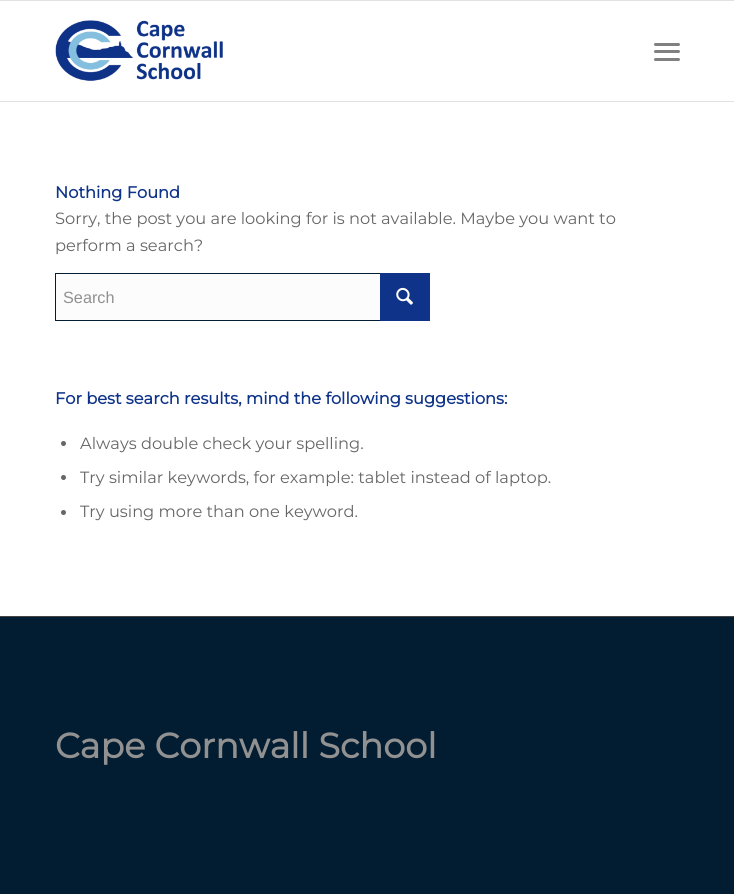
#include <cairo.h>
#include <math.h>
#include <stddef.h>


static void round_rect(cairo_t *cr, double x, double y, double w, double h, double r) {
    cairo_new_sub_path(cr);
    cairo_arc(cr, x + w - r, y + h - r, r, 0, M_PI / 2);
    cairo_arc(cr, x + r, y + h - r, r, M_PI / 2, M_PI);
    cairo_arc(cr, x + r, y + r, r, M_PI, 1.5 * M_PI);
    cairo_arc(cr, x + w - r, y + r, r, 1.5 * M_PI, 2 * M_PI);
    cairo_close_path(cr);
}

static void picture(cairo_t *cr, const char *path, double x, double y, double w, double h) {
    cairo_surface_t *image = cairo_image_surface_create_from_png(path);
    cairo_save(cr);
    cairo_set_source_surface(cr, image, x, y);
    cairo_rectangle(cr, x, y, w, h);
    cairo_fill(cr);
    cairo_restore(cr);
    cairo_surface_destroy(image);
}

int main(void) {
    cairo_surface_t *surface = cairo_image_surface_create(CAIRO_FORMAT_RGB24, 734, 894);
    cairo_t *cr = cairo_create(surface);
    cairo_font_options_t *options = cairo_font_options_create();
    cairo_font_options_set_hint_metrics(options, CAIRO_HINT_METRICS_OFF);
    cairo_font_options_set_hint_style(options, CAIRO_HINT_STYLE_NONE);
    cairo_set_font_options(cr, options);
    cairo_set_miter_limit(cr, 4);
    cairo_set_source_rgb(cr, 1, 1, 1);
    cairo_paint(cr);
    cairo_set_source_rgb(cr, 0.882, 0.882, 0.882);
    cairo_rectangle(cr, 0, 0, 734, 1);
    cairo_fill(cr);
    cairo_rectangle(cr, 0, 101, 734, 1);
    cairo_fill(cr);
    picture(cr, "img1.png", 55, 20, 168, 61);
    cairo_set_source_rgb(cr, 0.502, 0.502, 0.502);
    round_rect(cr, 654, 50, 26, 3, 1.5);
    cairo_fill(cr);
    round_rect(cr, 654, 43, 26, 3, 1.5);
    cairo_fill(cr);
    round_rect(cr, 654, 58, 26, 3, 1.5);
    cairo_fill(cr);
    cairo_select_font_face(cr, "Montserrat", CAIRO_FONT_SLANT_NORMAL, CAIRO_FONT_WEIGHT_BOLD);
    cairo_set_font_size(cr, 16.25);
    cairo_set_source_rgb(cr, 0.055, 0.2, 0.533);
    cairo_move_to(cr, 55, 198);
    cairo_show_text(cr, "Nothing Found");
    cairo_select_font_face(cr, "Montserrat Thin", CAIRO_FONT_SLANT_NORMAL, CAIRO_FONT_WEIGHT_NORMAL);
    cairo_set_source_rgb(cr, 0.4, 0.4, 0.4);
    cairo_move_to(cr, 55, 224);
    cairo_show_text(cr, "Sorry, the post you are looking for is not available. Maybe you want to");
    cairo_move_to(cr, 55, 251);
    cairo_show_text(cr, "perform a search?");
    cairo_set_source_rgb(cr, 0.988, 0.988, 0.988);
    cairo_rectangle(cr, 56, 274, 324, 46);
    cairo_fill(cr);
    cairo_rectangle(cr, 55.5, 273.5, 374, 47);
    cairo_set_source_rgb(cr, 0.008, 0.11, 0.192);
    cairo_set_line_width(cr, 1);
    cairo_stroke(cr);
    cairo_select_font_face(cr, "Liberation Sans", CAIRO_FONT_SLANT_NORMAL, CAIRO_FONT_WEIGHT_NORMAL);
    cairo_set_source_rgb(cr, 0.569, 0.569, 0.569);
    cairo_move_to(cr, 63, 303);
    cairo_show_text(cr, "Search");
    cairo_set_source_rgb(cr, 0.055, 0.2, 0.533);
    cairo_rectangle(cr, 380, 273, 50, 48);
    cairo_fill(cr);
    picture(cr, "img2.png", 396, 287, 17, 18);
    cairo_select_font_face(cr, "Montserrat", CAIRO_FONT_SLANT_NORMAL, CAIRO_FONT_WEIGHT_BOLD);
    cairo_move_to(cr, 55, 404);
    cairo_show_text(cr, "For best search results, mind the following suggestions:");
    cairo_set_source_rgb(cr, 0.4, 0.4, 0.4);
    cairo_new_path(cr);
    cairo_arc(cr, 63.5, 443.5, 2.5, 0, 2 * M_PI);
    cairo_fill(cr);
    cairo_select_font_face(cr, "Montserrat Thin", CAIRO_FONT_SLANT_NORMAL, CAIRO_FONT_WEIGHT_NORMAL);
    cairo_move_to(cr, 80, 449);
    cairo_show_text(cr, "Always double check your spelling.");
    cairo_new_path(cr);
    cairo_arc(cr, 63.5, 477.5, 2.5, 0, 2 * M_PI);
    cairo_fill(cr);
    cairo_move_to(cr, 80, 483);
    cairo_show_text(cr, "Try similar keywords, for example: tablet instead of laptop.");
    cairo_new_path(cr);
    cairo_arc(cr, 63.5, 512.5, 2.5, 0, 2 * M_PI);
    cairo_fill(cr);
    cairo_move_to(cr, 80, 517);
    cairo_show_text(cr, "Try using more than one keyword.");
    cairo_set_source_rgb(cr, 0.008, 0.11, 0.192);
    cairo_rectangle(cr, 0, 617, 734, 277);
    cairo_fill(cr);
    cairo_set_source_rgb(cr, 0.267, 0.267, 0.267);
    cairo_rectangle(cr, 0, 616, 734, 1);
    cairo_fill(cr);
    cairo_select_font_face(cr, "Montserrat", CAIRO_FONT_SLANT_NORMAL, CAIRO_FONT_WEIGHT_BOLD);
    cairo_set_font_size(cr, 35);
    cairo_set_source_rgb(cr, 0.569, 0.569, 0.569);
    cairo_move_to(cr, 55, 758);
    cairo_show_text(cr, "Cape Cornwall School");
    cairo_surface_write_to_png(surface, "page.png");
    cairo_font_options_destroy(options);
    cairo_destroy(cr);
    cairo_surface_destroy(surface);
    return 0;
}
